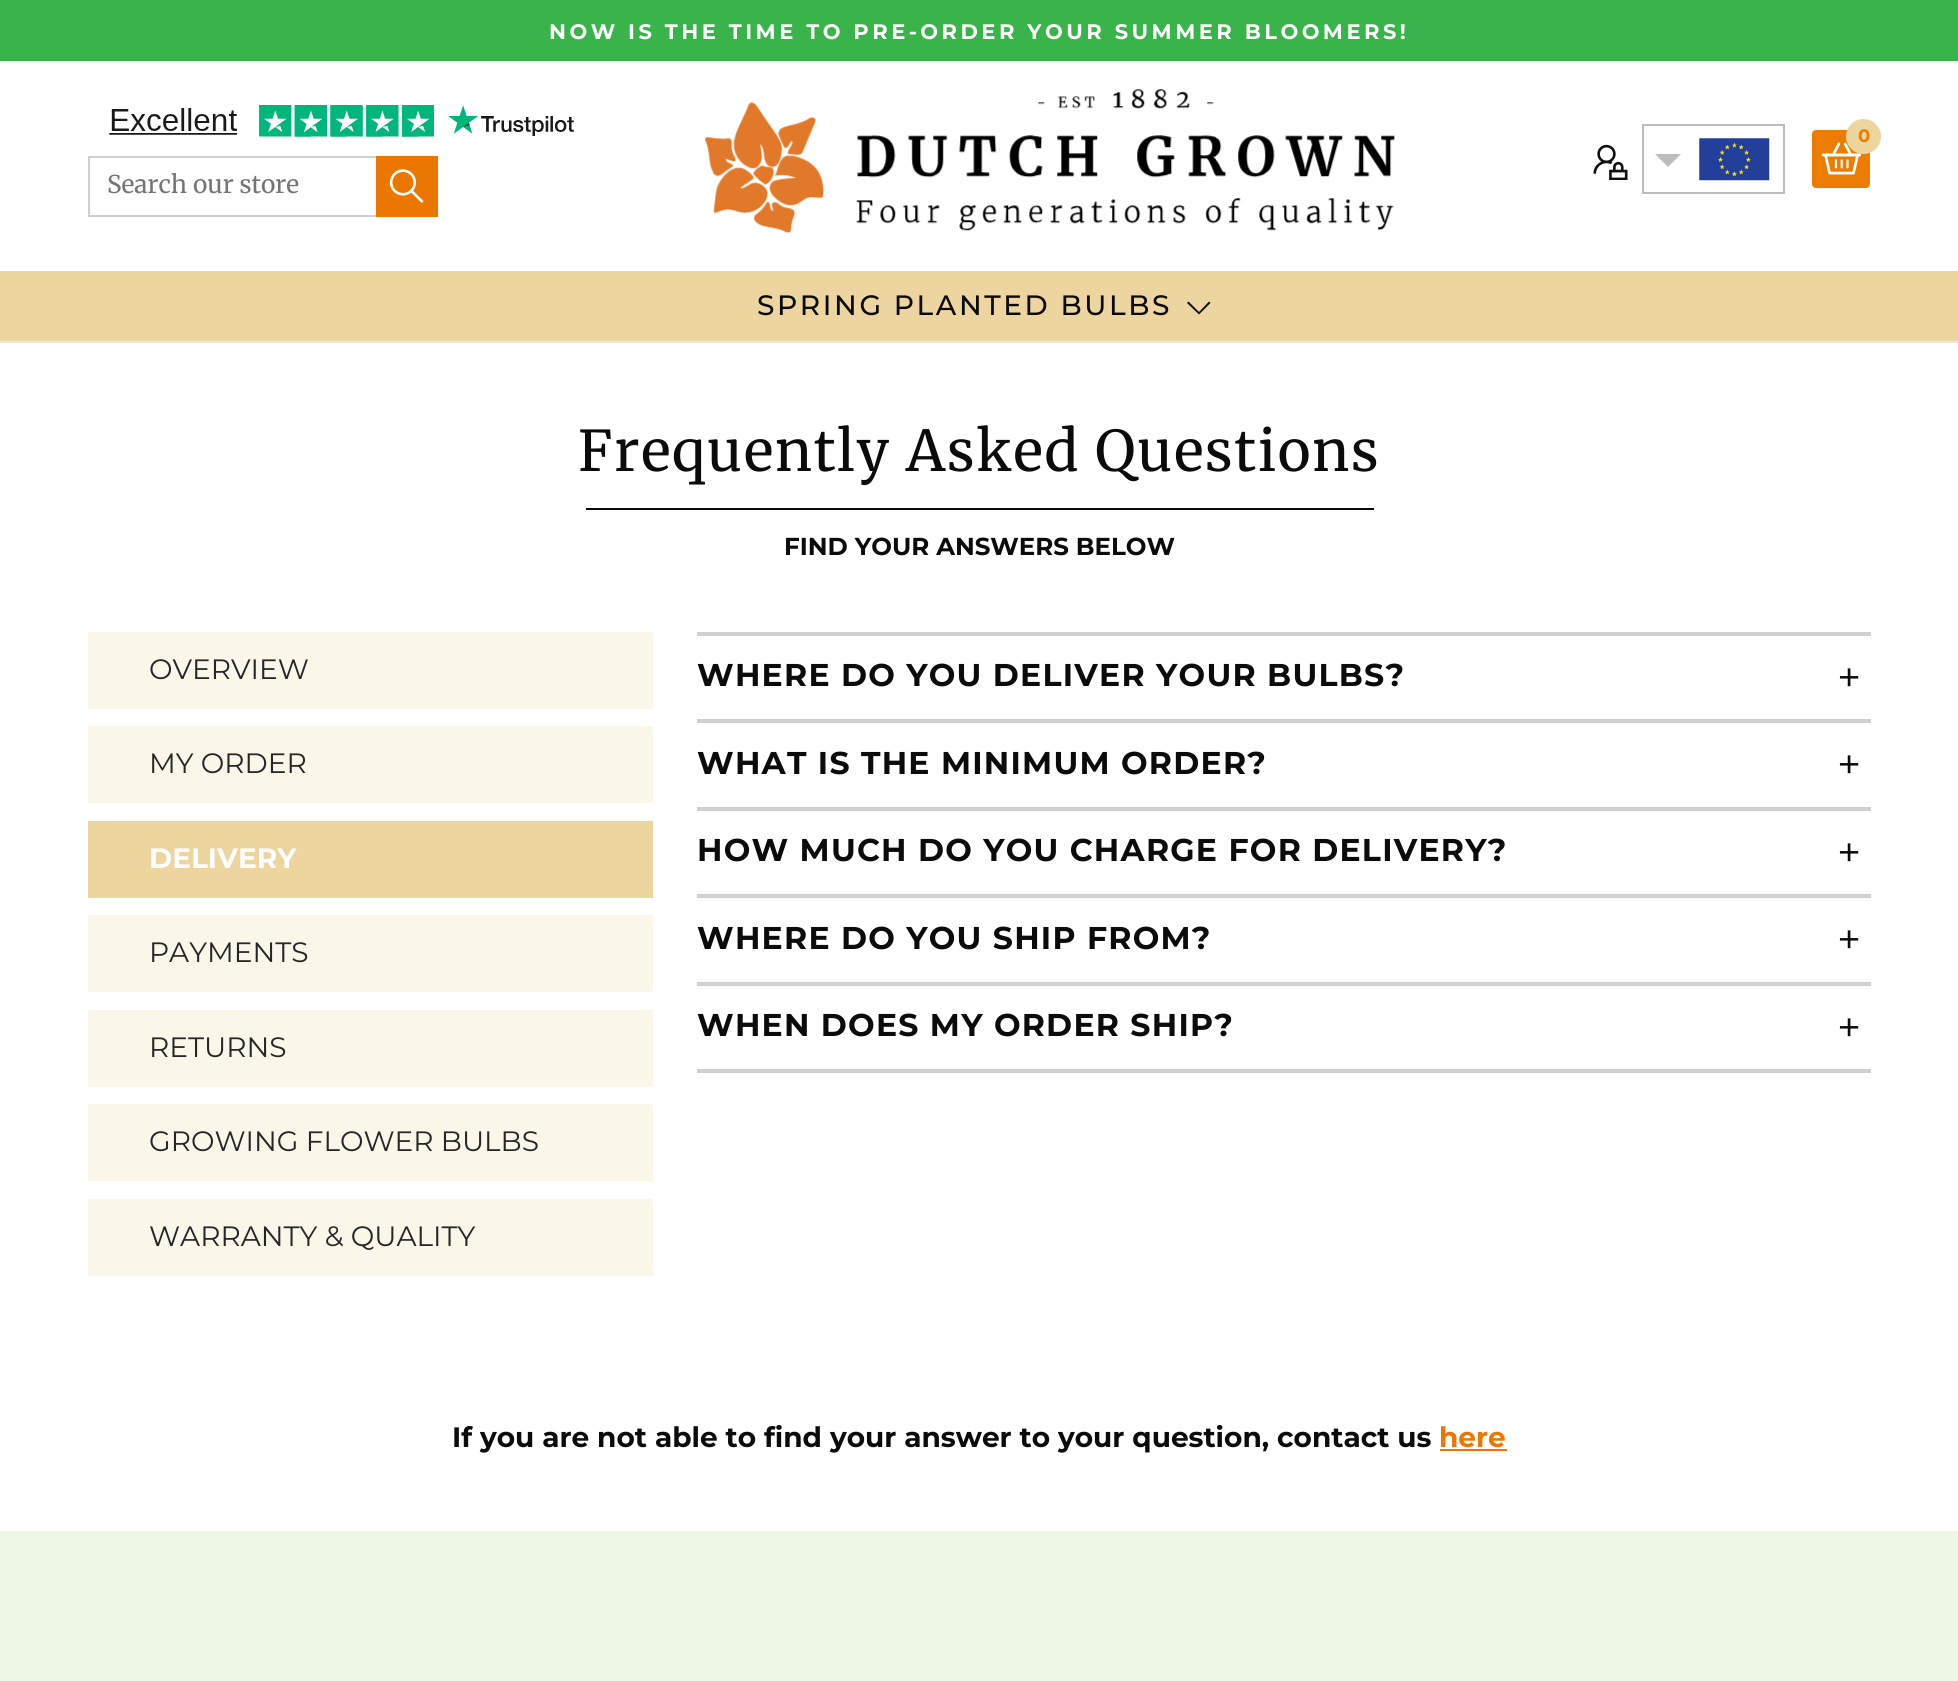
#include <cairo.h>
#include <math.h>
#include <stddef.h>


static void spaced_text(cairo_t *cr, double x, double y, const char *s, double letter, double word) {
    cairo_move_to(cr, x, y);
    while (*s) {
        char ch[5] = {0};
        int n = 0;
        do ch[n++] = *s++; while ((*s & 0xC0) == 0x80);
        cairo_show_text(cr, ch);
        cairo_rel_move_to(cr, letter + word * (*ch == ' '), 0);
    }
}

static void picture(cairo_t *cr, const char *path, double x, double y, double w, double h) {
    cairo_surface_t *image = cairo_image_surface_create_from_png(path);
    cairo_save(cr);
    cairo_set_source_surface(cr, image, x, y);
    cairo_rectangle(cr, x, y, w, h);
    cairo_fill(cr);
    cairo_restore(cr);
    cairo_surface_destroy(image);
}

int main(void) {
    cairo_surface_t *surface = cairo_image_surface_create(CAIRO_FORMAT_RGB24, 1958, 1681);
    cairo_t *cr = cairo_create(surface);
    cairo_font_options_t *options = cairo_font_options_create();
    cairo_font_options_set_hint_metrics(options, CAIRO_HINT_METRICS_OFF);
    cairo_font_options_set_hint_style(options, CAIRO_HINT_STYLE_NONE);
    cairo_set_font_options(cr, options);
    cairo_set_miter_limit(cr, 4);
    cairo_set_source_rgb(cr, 1, 1, 1);
    cairo_paint(cr);
    cairo_set_source_rgb(cr, 0.224, 0.706, 0.29);
    cairo_rectangle(cr, 0, 0, 1958, 61);
    cairo_fill(cr);
    cairo_select_font_face(cr, "Montserrat", CAIRO_FONT_SLANT_NORMAL, CAIRO_FONT_WEIGHT_BOLD);
    cairo_set_font_size(cr, 21);
    cairo_set_source_rgb(cr, 1, 1, 1);
    spaced_text(cr, 549, 39, "NOW IS THE TIME TO PRE-ORDER YOUR SUMMER BLOOMERS!", 3.5, 0);
    cairo_set_source_rgb(cr, 0.902, 0.902, 0.902);
    cairo_rectangle(cr, 0, 341, 1958, 2);
    cairo_fill(cr);
    picture(cr, "img1.png", 705, 89, 690, 144);
    cairo_rectangle(cr, 1643, 125, 141, 68);
    cairo_set_source_rgb(cr, 0.749, 0.737, 0.722);
    cairo_stroke(cr);
    cairo_save(cr);
    cairo_rectangle(cr, 1652, 154, 32, 14);
    cairo_clip(cr);
    cairo_new_path(cr);
    cairo_move_to(cr, 1668, 167);
    cairo_line_to(cr, 1654, 153);
    cairo_line_to(cr, 1682, 153);
    cairo_close_path(cr);
    cairo_fill(cr);
    cairo_restore(cr);
    picture(cr, "img2.png", 1699, 138, 71, 43);
    picture(cr, "img3.png", 1812, 130, 58, 58);
    cairo_set_source_rgb(cr, 0.925, 0.835, 0.624);
    cairo_arc(cr, 1863.5, 136.5, 17.5, 0, 2 * M_PI);
    cairo_fill(cr);
    cairo_set_font_size(cr, 18);
    cairo_set_source_rgb(cr, 0.929, 0.49, 0);
    cairo_move_to(cr, 1858, 142);
    cairo_show_text(cr, "0");
    picture(cr, "img4.png", 1593, 144, 35, 36);
    picture(cr, "img5.png", 109, 105, 465, 32);
    cairo_rectangle(cr, 89, 157, 348, 59);
    cairo_set_source_rgb(cr, 0.816, 0.816, 0.816);
    cairo_stroke(cr);
    cairo_select_font_face(cr, "Merriweather", CAIRO_FONT_SLANT_NORMAL, CAIRO_FONT_WEIGHT_NORMAL);
    cairo_set_font_size(cr, 24.5);
    cairo_set_source_rgb(cr, 0.459, 0.459, 0.459);
    cairo_move_to(cr, 107, 193);
    cairo_show_text(cr, "Search our store");
    cairo_set_source_rgb(cr, 0.918, 0.467, 0);
    cairo_rectangle(cr, 376, 156, 62, 61);
    cairo_fill(cr);
    picture(cr, "img6.png", 389, 169, 35, 34);
    cairo_set_source_rgb(cr, 0.925, 0.835, 0.624);
    cairo_rectangle(cr, 0, 271, 1958, 70);
    cairo_fill(cr);
    cairo_select_font_face(cr, "Montserrat Medium", CAIRO_FONT_SLANT_NORMAL, CAIRO_FONT_WEIGHT_NORMAL);
    cairo_set_font_size(cr, 28);
    cairo_set_source_rgb(cr, 0.043, 0.043, 0.043);
    spaced_text(cr, 757, 315, "SPRING PLANTED BULBS", 2.6, 0);
    cairo_set_source_rgb(cr, 0.063, 0.063, 0.063);
    cairo_new_path(cr);
    cairo_move_to(cr, 1188.5, 301.5);
    cairo_line_to(cr, 1187, 303);
    cairo_line_to(cr, 1199, 314.5);
    cairo_line_to(cr, 1210.5, 303);
    cairo_line_to(cr, 1209, 301.5);
    cairo_line_to(cr, 1199, 312);
    cairo_close_path(cr);
    cairo_fill(cr);
    cairo_select_font_face(cr, "Merriweather", CAIRO_FONT_SLANT_NORMAL, CAIRO_FONT_WEIGHT_NORMAL);
    cairo_set_font_size(cr, 56);
    cairo_set_source_rgb(cr, 0.043, 0.043, 0.043);
    spaced_text(cr, 578, 471, "Frequently Asked Questions", 1.75, 0);
    cairo_rectangle(cr, 586, 508, 788, 2);
    cairo_fill(cr);
    cairo_select_font_face(cr, "Montserrat", CAIRO_FONT_SLANT_NORMAL, CAIRO_FONT_WEIGHT_BOLD);
    cairo_set_font_size(cr, 24.5);
    cairo_move_to(cr, 784, 555);
    cairo_show_text(cr, "FIND YOUR ANSWERS BELOW");
    cairo_set_source_rgb(cr, 0.98, 0.961, 0.91);
    cairo_rectangle(cr, 88, 632, 565, 77);
    cairo_fill(cr);
    cairo_select_font_face(cr, "Montserrat", CAIRO_FONT_SLANT_NORMAL, CAIRO_FONT_WEIGHT_NORMAL);
    cairo_set_font_size(cr, 28);
    cairo_set_source_rgb(cr, 0.149, 0.149, 0.149);
    cairo_move_to(cr, 149, 679);
    cairo_show_text(cr, "OVERVIEW");
    cairo_set_source_rgb(cr, 0.98, 0.961, 0.91);
    cairo_rectangle(cr, 88, 726, 565, 77);
    cairo_fill(cr);
    cairo_set_source_rgb(cr, 0.149, 0.149, 0.149);
    cairo_move_to(cr, 149, 773);
    cairo_show_text(cr, "MY ORDER");
    cairo_set_source_rgb(cr, 0.925, 0.835, 0.624);
    cairo_rectangle(cr, 88, 821, 565, 77);
    cairo_fill(cr);
    cairo_select_font_face(cr, "Montserrat", CAIRO_FONT_SLANT_NORMAL, CAIRO_FONT_WEIGHT_BOLD);
    cairo_set_source_rgb(cr, 1, 1, 1);
    cairo_move_to(cr, 149, 868);
    cairo_show_text(cr, "DELIVERY");
    cairo_set_source_rgb(cr, 0.98, 0.961, 0.91);
    cairo_rectangle(cr, 88, 915, 565, 77);
    cairo_fill(cr);
    cairo_select_font_face(cr, "Montserrat", CAIRO_FONT_SLANT_NORMAL, CAIRO_FONT_WEIGHT_NORMAL);
    cairo_set_source_rgb(cr, 0.149, 0.149, 0.149);
    cairo_move_to(cr, 149, 962);
    cairo_show_text(cr, "PAYMENTS");
    cairo_set_source_rgb(cr, 0.98, 0.961, 0.91);
    cairo_rectangle(cr, 88, 1010, 565, 77);
    cairo_fill(cr);
    cairo_set_source_rgb(cr, 0.149, 0.149, 0.149);
    cairo_move_to(cr, 149, 1057);
    cairo_show_text(cr, "RETURNS");
    cairo_set_source_rgb(cr, 0.98, 0.961, 0.91);
    cairo_rectangle(cr, 88, 1104, 565, 77);
    cairo_fill(cr);
    cairo_set_source_rgb(cr, 0.149, 0.149, 0.149);
    cairo_move_to(cr, 149, 1151);
    cairo_show_text(cr, "GROWING FLOWER BULBS");
    cairo_set_source_rgb(cr, 0.98, 0.961, 0.91);
    cairo_rectangle(cr, 88, 1199, 565, 77);
    cairo_fill(cr);
    cairo_set_source_rgb(cr, 0.149, 0.149, 0.149);
    cairo_move_to(cr, 149, 1246);
    cairo_show_text(cr, "WARRANTY & QUALITY");
    cairo_set_source_rgb(cr, 0.816, 0.816, 0.816);
    cairo_rectangle(cr, 697, 632, 1174, 4);
    cairo_fill(cr);
    cairo_rectangle(cr, 697, 719, 1174, 4);
    cairo_fill(cr);
    cairo_select_font_face(cr, "Montserrat", CAIRO_FONT_SLANT_NORMAL, CAIRO_FONT_WEIGHT_BOLD);
    cairo_set_font_size(cr, 31.5);
    cairo_set_source_rgb(cr, 0.043, 0.043, 0.043);
    spaced_text(cr, 697, 686, "WHERE DO YOU DELIVER YOUR BULBS?", 1.25, 0);
    cairo_select_font_face(cr, "Montserrat", CAIRO_FONT_SLANT_NORMAL, CAIRO_FONT_WEIGHT_NORMAL);
    cairo_set_font_size(cr, 42);
    spaced_text(cr, 1837, 692, "+", 1.25, 0);
    cairo_set_source_rgb(cr, 0.816, 0.816, 0.816);
    cairo_rectangle(cr, 697, 807, 1174, 4);
    cairo_fill(cr);
    cairo_select_font_face(cr, "Montserrat", CAIRO_FONT_SLANT_NORMAL, CAIRO_FONT_WEIGHT_BOLD);
    cairo_set_font_size(cr, 31.5);
    cairo_set_source_rgb(cr, 0.043, 0.043, 0.043);
    spaced_text(cr, 697, 774, "WHAT IS THE MINIMUM ORDER?", 1.25, 0);
    cairo_select_font_face(cr, "Montserrat", CAIRO_FONT_SLANT_NORMAL, CAIRO_FONT_WEIGHT_NORMAL);
    cairo_set_font_size(cr, 42);
    spaced_text(cr, 1837, 779, "+", 1.25, 0);
    cairo_set_source_rgb(cr, 0.816, 0.816, 0.816);
    cairo_rectangle(cr, 697, 894, 1174, 4);
    cairo_fill(cr);
    cairo_select_font_face(cr, "Montserrat", CAIRO_FONT_SLANT_NORMAL, CAIRO_FONT_WEIGHT_BOLD);
    cairo_set_font_size(cr, 31.5);
    cairo_set_source_rgb(cr, 0.043, 0.043, 0.043);
    spaced_text(cr, 697, 861, "HOW MUCH DO YOU CHARGE FOR DELIVERY?", 1.25, 0);
    cairo_select_font_face(cr, "Montserrat", CAIRO_FONT_SLANT_NORMAL, CAIRO_FONT_WEIGHT_NORMAL);
    cairo_set_font_size(cr, 42);
    spaced_text(cr, 1837, 867, "+", 1.25, 0);
    cairo_set_source_rgb(cr, 0.816, 0.816, 0.816);
    cairo_rectangle(cr, 697, 982, 1174, 4);
    cairo_fill(cr);
    cairo_select_font_face(cr, "Montserrat", CAIRO_FONT_SLANT_NORMAL, CAIRO_FONT_WEIGHT_BOLD);
    cairo_set_font_size(cr, 31.5);
    cairo_set_source_rgb(cr, 0.043, 0.043, 0.043);
    spaced_text(cr, 697, 949, "WHERE DO YOU SHIP FROM?", 1.25, 0);
    cairo_select_font_face(cr, "Montserrat", CAIRO_FONT_SLANT_NORMAL, CAIRO_FONT_WEIGHT_NORMAL);
    cairo_set_font_size(cr, 42);
    spaced_text(cr, 1837, 954, "+", 1.25, 0);
    cairo_set_source_rgb(cr, 0.816, 0.816, 0.816);
    cairo_rectangle(cr, 697, 1069, 1174, 4);
    cairo_fill(cr);
    cairo_select_font_face(cr, "Montserrat", CAIRO_FONT_SLANT_NORMAL, CAIRO_FONT_WEIGHT_BOLD);
    cairo_set_font_size(cr, 31.5);
    cairo_set_source_rgb(cr, 0.043, 0.043, 0.043);
    spaced_text(cr, 697, 1036, "WHEN DOES MY ORDER SHIP?", 1.25, 0);
    cairo_select_font_face(cr, "Montserrat", CAIRO_FONT_SLANT_NORMAL, CAIRO_FONT_WEIGHT_NORMAL);
    cairo_set_font_size(cr, 42);
    spaced_text(cr, 1837, 1042, "+", 1.25, 0);
    cairo_select_font_face(cr, "Montserrat", CAIRO_FONT_SLANT_NORMAL, CAIRO_FONT_WEIGHT_BOLD);
    cairo_set_font_size(cr, 28);
    cairo_move_to(cr, 452, 1447);
    cairo_show_text(cr, "If you are not able to find your answer to your question, contact us");
    cairo_set_source_rgb(cr, 0.918, 0.467, 0);
    cairo_move_to(cr, 1439, 1447);
    cairo_show_text(cr, "here");
    cairo_rectangle(cr, 1440, 1449, 67, 2);
    cairo_fill(cr);
    cairo_set_source_rgb(cr, 0.933, 0.965, 0.89);
    cairo_rectangle(cr, 0, 1531, 1958, 150);
    cairo_fill(cr);
    cairo_surface_write_to_png(surface, "page.png");
    cairo_font_options_destroy(options);
    cairo_destroy(cr);
    cairo_surface_destroy(surface);
    return 0;
}
